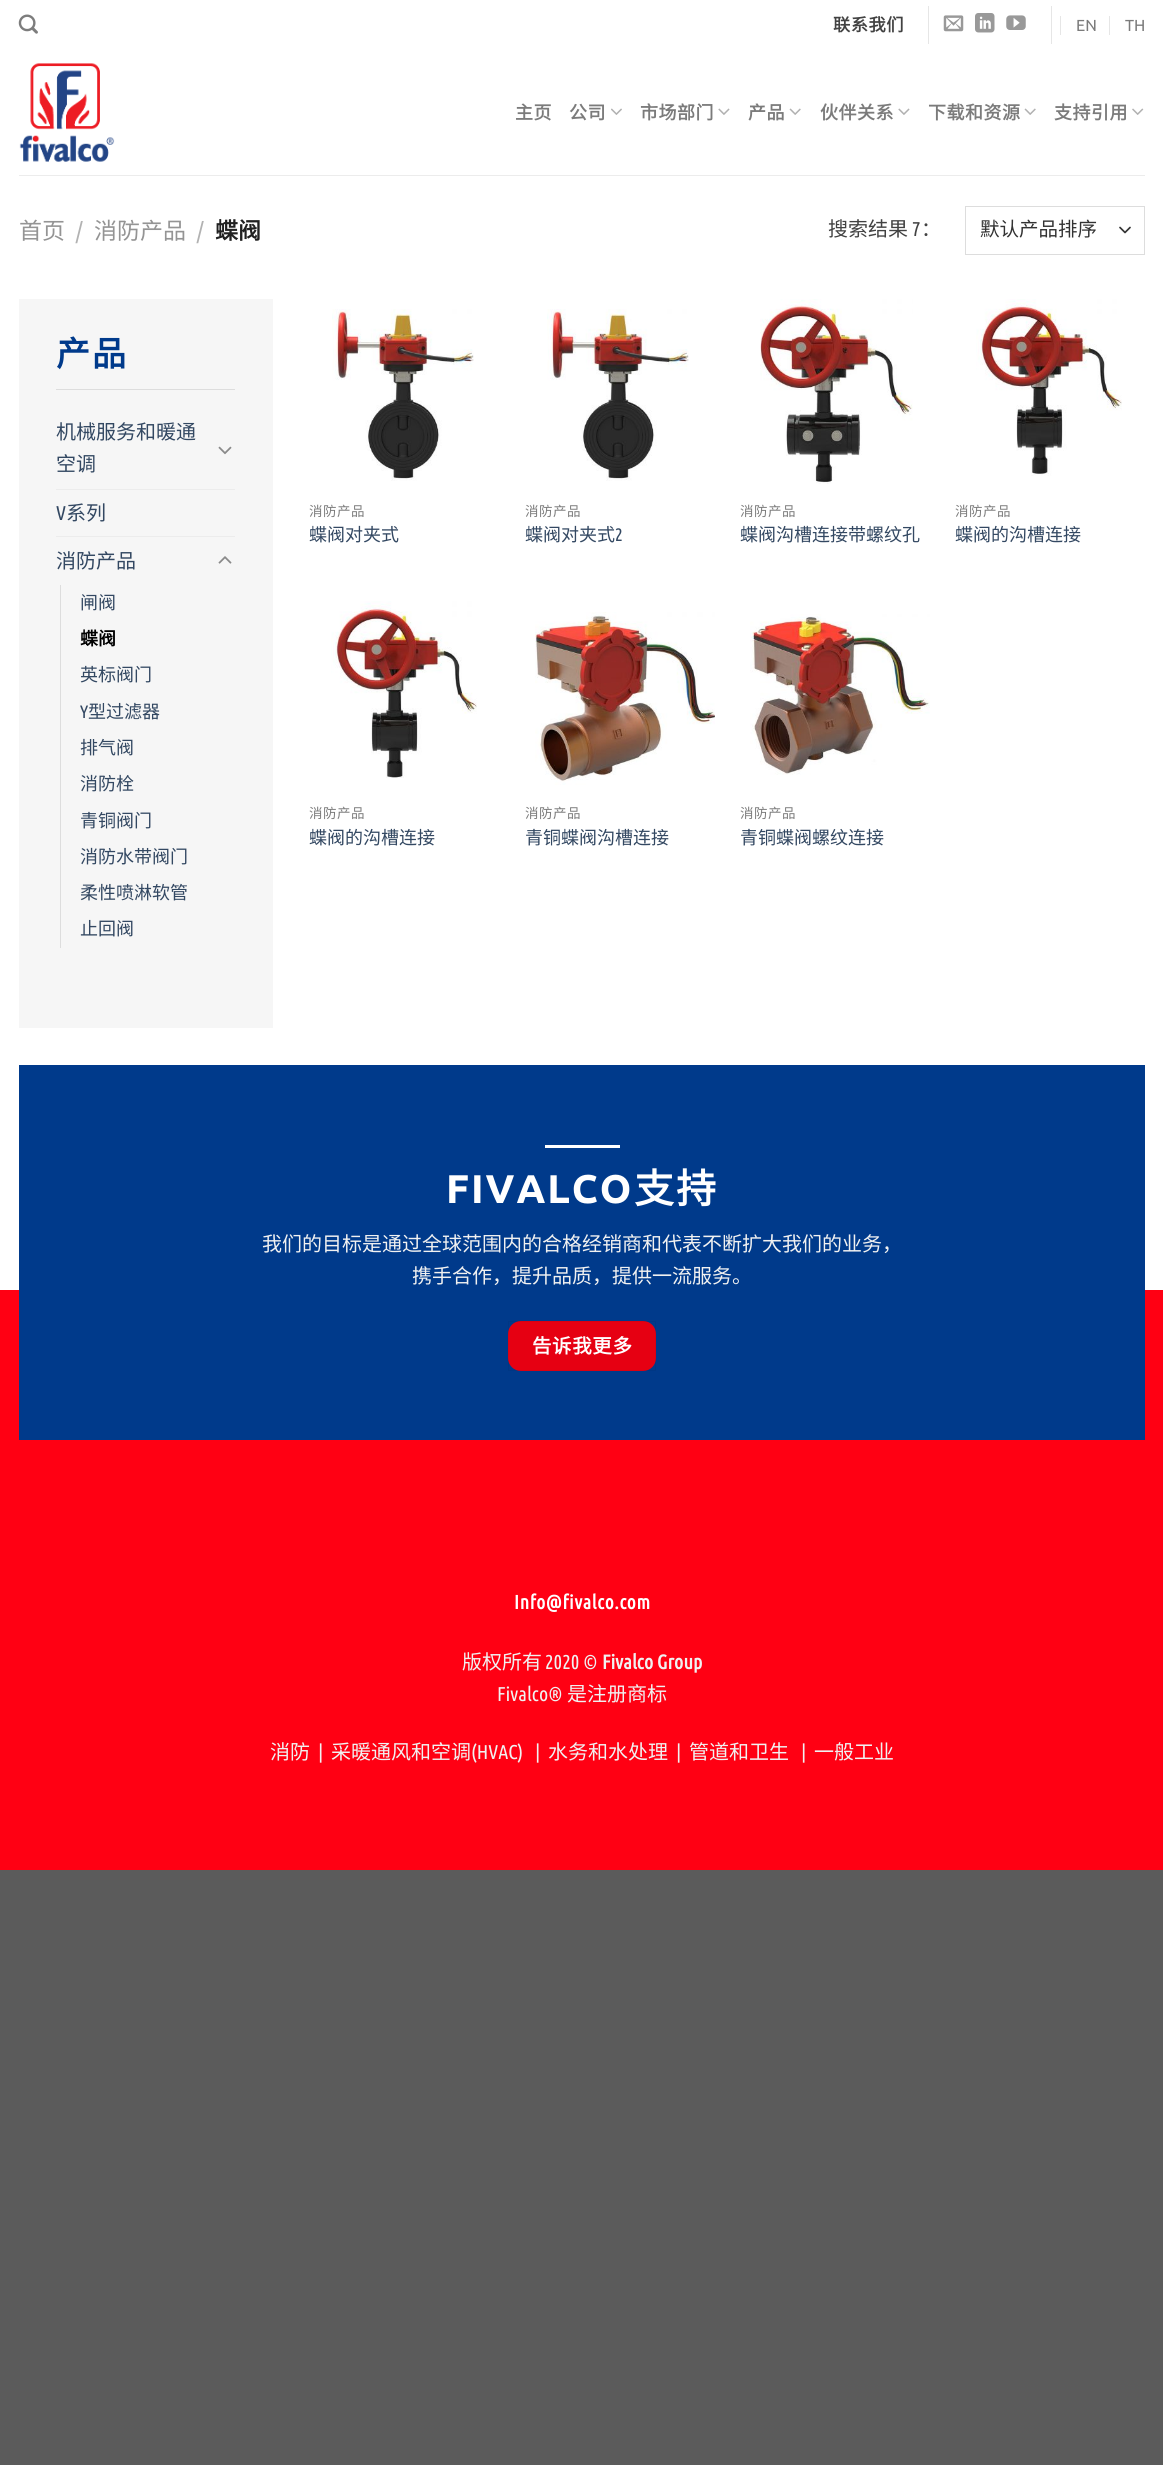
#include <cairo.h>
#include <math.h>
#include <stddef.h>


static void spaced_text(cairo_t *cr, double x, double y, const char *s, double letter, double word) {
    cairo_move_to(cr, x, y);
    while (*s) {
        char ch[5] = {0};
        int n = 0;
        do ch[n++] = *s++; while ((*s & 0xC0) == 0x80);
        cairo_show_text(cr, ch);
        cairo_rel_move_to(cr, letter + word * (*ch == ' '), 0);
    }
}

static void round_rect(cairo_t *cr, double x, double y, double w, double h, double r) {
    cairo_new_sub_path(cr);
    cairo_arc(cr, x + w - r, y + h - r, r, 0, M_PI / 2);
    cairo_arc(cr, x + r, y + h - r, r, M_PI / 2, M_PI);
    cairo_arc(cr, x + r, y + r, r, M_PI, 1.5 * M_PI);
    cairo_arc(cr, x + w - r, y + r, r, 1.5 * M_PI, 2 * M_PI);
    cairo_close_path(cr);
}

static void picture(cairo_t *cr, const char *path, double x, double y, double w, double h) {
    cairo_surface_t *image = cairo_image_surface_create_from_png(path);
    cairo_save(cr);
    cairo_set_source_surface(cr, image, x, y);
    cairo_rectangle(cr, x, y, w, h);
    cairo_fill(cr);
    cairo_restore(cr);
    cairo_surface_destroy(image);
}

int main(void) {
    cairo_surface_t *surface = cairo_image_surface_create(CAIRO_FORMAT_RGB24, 1163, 2465);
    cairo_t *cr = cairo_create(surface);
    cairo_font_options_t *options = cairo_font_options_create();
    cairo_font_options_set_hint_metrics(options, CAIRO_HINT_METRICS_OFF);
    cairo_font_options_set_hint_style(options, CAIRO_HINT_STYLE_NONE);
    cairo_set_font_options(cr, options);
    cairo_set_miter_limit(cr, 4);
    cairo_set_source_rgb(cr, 0.357, 0.357, 0.357);
    cairo_paint(cr);
    cairo_set_source_rgb(cr, 1, 1, 1);
    cairo_rectangle(cr, 0, 0, 1163, 1290);
    cairo_fill(cr);
    picture(cr, "img1.png", 18, 14, 20, 20);
    cairo_select_font_face(cr, "Noto Sans CJK SC", CAIRO_FONT_SLANT_NORMAL, CAIRO_FONT_WEIGHT_BOLD);
    cairo_set_font_size(cr, 17.25);
    cairo_set_source_rgb(cr, 0.259, 0.259, 0.259);
    spaced_text(cr, 833, 31, "联系我们", 0.5, 0);
    cairo_set_source_rgb(cr, 0.902, 0.902, 0.902);
    cairo_rectangle(cr, 928, 6, 1, 38);
    cairo_fill(cr);
    picture(cr, "img2.png", 943, 15, 21, 17);
    picture(cr, "img3.png", 975, 13, 20, 20);
    picture(cr, "img4.png", 1006, 15, 20, 15);
    cairo_rectangle(cr, 1051, 6, 1, 38);
    cairo_fill(cr);
    cairo_rectangle(cr, 1060, 16, 1, 19);
    cairo_fill(cr);
    cairo_select_font_face(cr, "Ubuntu", CAIRO_FONT_SLANT_NORMAL, CAIRO_FONT_WEIGHT_NORMAL);
    cairo_set_font_size(cr, 16);
    cairo_set_source_rgb(cr, 0.482, 0.482, 0.482);
    cairo_move_to(cr, 1076, 31);
    cairo_show_text(cr, "EN");
    cairo_set_source_rgb(cr, 0.902, 0.902, 0.902);
    cairo_rectangle(cr, 1109, 16, 1, 19);
    cairo_fill(cr);
    cairo_set_source_rgb(cr, 0.482, 0.482, 0.482);
    cairo_move_to(cr, 1125, 31);
    cairo_show_text(cr, "TH");
    picture(cr, "img5.png", 19, 63, 96, 99);
    cairo_select_font_face(cr, "Noto Sans CJK SC", CAIRO_FONT_SLANT_NORMAL, CAIRO_FONT_WEIGHT_BOLD);
    cairo_set_font_size(cr, 18);
    spaced_text(cr, 515, 119, "主页", 0.5, 0);
    spaced_text(cr, 569, 119, "公司", 0.5, 0);
    picture(cr, "img6.png", 611, 108, 11, 7);
    spaced_text(cr, 640, 119, "市场部门", 0.5, 0);
    picture(cr, "img7.png", 718, 108, 12, 7);
    spaced_text(cr, 748, 119, "产品", 0.5, 0);
    picture(cr, "img8.png", 789, 108, 12, 7);
    spaced_text(cr, 820, 119, "伙伴关系", 0.5, 0);
    picture(cr, "img7.png", 898, 108, 12, 7);
    spaced_text(cr, 928, 119, "下载和资源", 0.5, 0);
    picture(cr, "img8.png", 1024, 108, 12, 7);
    spaced_text(cr, 1054, 119, "支持引用", 0.5, 0);
    picture(cr, "img9.png", 1132, 108, 12, 7);
    cairo_set_source_rgb(cr, 0.925, 0.925, 0.925);
    cairo_rectangle(cr, 19, 175, 1126, 1);
    cairo_fill(cr);
    cairo_select_font_face(cr, "Noto Sans CJK SC", CAIRO_FONT_SLANT_NORMAL, CAIRO_FONT_WEIGHT_NORMAL);
    cairo_set_font_size(cr, 23);
    cairo_set_source_rgb(cr, 0.58, 0.58, 0.58);
    cairo_move_to(cr, 19, 239);
    cairo_show_text(cr, "首页");
    cairo_select_font_face(cr, "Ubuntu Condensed", CAIRO_FONT_SLANT_NORMAL, CAIRO_FONT_WEIGHT_NORMAL);
    cairo_set_source_rgb(cr, 0.698, 0.698, 0.698);
    cairo_move_to(cr, 76, 239);
    cairo_show_text(cr, "/");
    cairo_select_font_face(cr, "Noto Sans CJK SC", CAIRO_FONT_SLANT_NORMAL, CAIRO_FONT_WEIGHT_NORMAL);
    cairo_set_source_rgb(cr, 0.58, 0.58, 0.58);
    cairo_move_to(cr, 94, 239);
    cairo_show_text(cr, "消防产品");
    cairo_select_font_face(cr, "Ubuntu Condensed", CAIRO_FONT_SLANT_NORMAL, CAIRO_FONT_WEIGHT_NORMAL);
    cairo_set_source_rgb(cr, 0.698, 0.698, 0.698);
    cairo_move_to(cr, 197, 239);
    cairo_show_text(cr, "/");
    cairo_select_font_face(cr, "Noto Sans CJK SC", CAIRO_FONT_SLANT_NORMAL, CAIRO_FONT_WEIGHT_BOLD);
    cairo_set_source_rgb(cr, 0.133, 0.133, 0.133);
    cairo_move_to(cr, 215, 239);
    cairo_show_text(cr, "蝶阀");
    cairo_select_font_face(cr, "Noto Sans CJK SC", CAIRO_FONT_SLANT_NORMAL, CAIRO_FONT_WEIGHT_NORMAL);
    cairo_set_font_size(cr, 20);
    cairo_set_source_rgb(cr, 0.259, 0.259, 0.259);
    cairo_move_to(cr, 828, 236);
    cairo_show_text(cr, "搜索结果");
    cairo_select_font_face(cr, "Ubuntu Condensed", CAIRO_FONT_SLANT_NORMAL, CAIRO_FONT_WEIGHT_NORMAL);
    cairo_move_to(cr, 912, 236);
    cairo_show_text(cr, "7");
    cairo_select_font_face(cr, "Noto Sans CJK SC", CAIRO_FONT_SLANT_NORMAL, CAIRO_FONT_WEIGHT_NORMAL);
    cairo_move_to(cr, 921, 236);
    cairo_show_text(cr, "：");
    cairo_new_path(cr);
    cairo_move_to(cr, 1120, 227.5);
    cairo_line_to(cr, 1125, 232.5);
    cairo_line_to(cr, 1130, 227.5);
    cairo_set_source_rgb(cr, 0.2, 0.2, 0.2);
    cairo_set_line_width(cr, 1.7);
    cairo_set_line_cap(cr, CAIRO_LINE_CAP_ROUND);
    cairo_set_line_join(cr, CAIRO_LINE_JOIN_ROUND);
    cairo_stroke(cr);
    cairo_rectangle(cr, 965.5, 206.5, 179, 48);
    cairo_set_source_rgb(cr, 0.867, 0.867, 0.867);
    cairo_set_line_width(cr, 1);
    cairo_set_line_cap(cr, CAIRO_LINE_CAP_BUTT);
    cairo_set_line_join(cr, CAIRO_LINE_JOIN_MITER);
    cairo_stroke(cr);
    cairo_set_font_size(cr, 19.5);
    cairo_set_source_rgb(cr, 0.2, 0.2, 0.2);
    cairo_move_to(cr, 980, 236);
    cairo_show_text(cr, "默认产品排序");
    cairo_set_source_rgb(cr, 0.961, 0.961, 0.961);
    cairo_rectangle(cr, 19, 299, 254, 729);
    cairo_fill(cr);
    cairo_select_font_face(cr, "Noto Sans CJK SC", CAIRO_FONT_SLANT_NORMAL, CAIRO_FONT_WEIGHT_BOLD);
    cairo_set_font_size(cr, 34);
    cairo_set_source_rgb(cr, 0, 0.227, 0.545);
    spaced_text(cr, 56, 366, "产品", 2, 0);
    cairo_set_source_rgb(cr, 0.867, 0.867, 0.867);
    cairo_rectangle(cr, 56, 389, 179, 1);
    cairo_fill(cr);
    cairo_select_font_face(cr, "Noto Sans CJK SC", CAIRO_FONT_SLANT_NORMAL, CAIRO_FONT_WEIGHT_NORMAL);
    cairo_set_font_size(cr, 20);
    cairo_set_source_rgb(cr, 0.2, 0.282, 0.384);
    cairo_move_to(cr, 56, 439);
    cairo_show_text(cr, "机械服务和暖通");
    cairo_move_to(cr, 56, 471);
    cairo_show_text(cr, "空调");
    picture(cr, "img10.png", 218, 446, 14, 9);
    cairo_set_source_rgb(cr, 0.925, 0.925, 0.925);
    cairo_rectangle(cr, 56, 489, 179, 1);
    cairo_fill(cr);
    cairo_select_font_face(cr, "Ubuntu Condensed", CAIRO_FONT_SLANT_NORMAL, CAIRO_FONT_WEIGHT_NORMAL);
    cairo_set_source_rgb(cr, 0.2, 0.282, 0.384);
    cairo_move_to(cr, 56, 520);
    cairo_show_text(cr, "V");
    cairo_select_font_face(cr, "Noto Sans CJK SC", CAIRO_FONT_SLANT_NORMAL, CAIRO_FONT_WEIGHT_NORMAL);
    cairo_move_to(cr, 66, 520);
    cairo_show_text(cr, "系列");
    cairo_set_source_rgb(cr, 0.925, 0.925, 0.925);
    cairo_rectangle(cr, 56, 536, 179, 1);
    cairo_fill(cr);
    cairo_set_source_rgb(cr, 0.2, 0.282, 0.384);
    cairo_move_to(cr, 56, 568);
    cairo_show_text(cr, "消防产品");
    picture(cr, "img11.png", 218, 556, 14, 8);
    cairo_set_source_rgb(cr, 0.867, 0.867, 0.867);
    cairo_rectangle(cr, 60, 585, 1, 363);
    cairo_fill(cr);
    cairo_set_font_size(cr, 18);
    cairo_set_source_rgb(cr, 0.2, 0.282, 0.384);
    cairo_move_to(cr, 80, 609);
    cairo_show_text(cr, "闸阀");
    cairo_select_font_face(cr, "Noto Sans CJK SC", CAIRO_FONT_SLANT_NORMAL, CAIRO_FONT_WEIGHT_BOLD);
    cairo_set_source_rgb(cr, 0, 0, 0);
    cairo_move_to(cr, 80, 645);
    cairo_show_text(cr, "蝶阀");
    cairo_select_font_face(cr, "Noto Sans CJK SC", CAIRO_FONT_SLANT_NORMAL, CAIRO_FONT_WEIGHT_NORMAL);
    cairo_set_source_rgb(cr, 0.2, 0.282, 0.384);
    cairo_move_to(cr, 80, 681);
    cairo_show_text(cr, "英标阀门");
    cairo_select_font_face(cr, "Ubuntu Condensed", CAIRO_FONT_SLANT_NORMAL, CAIRO_FONT_WEIGHT_NORMAL);
    cairo_move_to(cr, 80, 718);
    cairo_show_text(cr, "Y");
    cairo_select_font_face(cr, "Noto Sans CJK SC", CAIRO_FONT_SLANT_NORMAL, CAIRO_FONT_WEIGHT_NORMAL);
    cairo_move_to(cr, 88, 718);
    cairo_show_text(cr, "型过滤器");
    cairo_move_to(cr, 80, 754);
    cairo_show_text(cr, "排气阀");
    cairo_move_to(cr, 80, 790);
    cairo_show_text(cr, "消防栓");
    cairo_move_to(cr, 80, 827);
    cairo_show_text(cr, "青铜阀门");
    cairo_move_to(cr, 80, 863);
    cairo_show_text(cr, "消防水带阀门");
    cairo_move_to(cr, 80, 899);
    cairo_show_text(cr, "柔性喷淋软管");
    cairo_move_to(cr, 80, 935);
    cairo_show_text(cr, "止回阀");
    picture(cr, "img12.png", 332, 309, 142, 172);
    cairo_set_font_size(cr, 13.5);
    cairo_set_source_rgb(cr, 0.482, 0.482, 0.482);
    spaced_text(cr, 309, 516, "消防产品", 0.5, 0);
    cairo_set_font_size(cr, 18);
    cairo_set_source_rgb(cr, 0.2, 0.282, 0.384);
    cairo_move_to(cr, 309, 541);
    cairo_show_text(cr, "蝶阀对夹式");
    picture(cr, "img12.png", 547, 309, 142, 172);
    cairo_set_font_size(cr, 13.5);
    cairo_set_source_rgb(cr, 0.482, 0.482, 0.482);
    spaced_text(cr, 525, 516, "消防产品", 0.5, 0);
    cairo_set_font_size(cr, 18);
    cairo_set_source_rgb(cr, 0.2, 0.282, 0.384);
    cairo_move_to(cr, 525, 541);
    cairo_show_text(cr, "蝶阀对夹式");
    cairo_select_font_face(cr, "Ubuntu Condensed", CAIRO_FONT_SLANT_NORMAL, CAIRO_FONT_WEIGHT_NORMAL);
    cairo_move_to(cr, 615, 541);
    cairo_show_text(cr, "2");
    picture(cr, "img13.png", 760, 299, 153, 185);
    cairo_select_font_face(cr, "Noto Sans CJK SC", CAIRO_FONT_SLANT_NORMAL, CAIRO_FONT_WEIGHT_NORMAL);
    cairo_set_font_size(cr, 13.5);
    cairo_set_source_rgb(cr, 0.482, 0.482, 0.482);
    spaced_text(cr, 740, 516, "消防产品", 0.5, 0);
    cairo_set_font_size(cr, 18);
    cairo_set_source_rgb(cr, 0.2, 0.282, 0.384);
    cairo_move_to(cr, 740, 541);
    cairo_show_text(cr, "蝶阀沟槽连接带螺纹孔");
    picture(cr, "img14.png", 976, 299, 146, 177);
    cairo_set_font_size(cr, 13.5);
    cairo_set_source_rgb(cr, 0.482, 0.482, 0.482);
    spaced_text(cr, 955, 516, "消防产品", 0.5, 0);
    cairo_set_font_size(cr, 18);
    cairo_set_source_rgb(cr, 0.2, 0.282, 0.384);
    cairo_move_to(cr, 955, 541);
    cairo_show_text(cr, "蝶阀的沟槽连接");
    picture(cr, "img15.png", 331, 601, 146, 177);
    cairo_set_font_size(cr, 13.5);
    cairo_set_source_rgb(cr, 0.482, 0.482, 0.482);
    spaced_text(cr, 309, 818, "消防产品", 0.5, 0);
    cairo_set_font_size(cr, 18);
    cairo_set_source_rgb(cr, 0.2, 0.282, 0.384);
    cairo_move_to(cr, 309, 844);
    cairo_show_text(cr, "蝶阀的沟槽连接");
    picture(cr, "img16.png", 535, 612, 180, 173);
    cairo_set_font_size(cr, 13.5);
    cairo_set_source_rgb(cr, 0.482, 0.482, 0.482);
    spaced_text(cr, 525, 818, "消防产品", 0.5, 0);
    cairo_set_font_size(cr, 18);
    cairo_set_source_rgb(cr, 0.2, 0.282, 0.384);
    cairo_move_to(cr, 525, 844);
    cairo_show_text(cr, "青铜蝶阀沟槽连接");
    picture(cr, "img17.png", 750, 614, 180, 161);
    cairo_set_font_size(cr, 13.5);
    cairo_set_source_rgb(cr, 0.482, 0.482, 0.482);
    spaced_text(cr, 740, 818, "消防产品", 0.5, 0);
    cairo_set_font_size(cr, 18);
    cairo_set_source_rgb(cr, 0.2, 0.282, 0.384);
    cairo_move_to(cr, 740, 844);
    cairo_show_text(cr, "青铜蝶阀螺纹连接");
    cairo_set_source_rgb(cr, 1, 0, 0.078);
    cairo_rectangle(cr, 0, 1290, 1163, 580);
    cairo_fill(cr);
    cairo_set_source_rgb(cr, 0, 0.227, 0.545);
    cairo_rectangle(cr, 19, 1065, 1126, 375);
    cairo_fill(cr);
    cairo_set_source_rgb(cr, 1, 1, 1);
    cairo_rectangle(cr, 545, 1145, 75, 3);
    cairo_fill(cr);
    cairo_select_font_face(cr, "Ubuntu", CAIRO_FONT_SLANT_NORMAL, CAIRO_FONT_WEIGHT_BOLD);
    cairo_set_font_size(cr, 40);
    spaced_text(cr, 446, 1203, "FIVALCO", 2, 0);
    cairo_select_font_face(cr, "Noto Sans CJK SC", CAIRO_FONT_SLANT_NORMAL, CAIRO_FONT_WEIGHT_BOLD);
    spaced_text(cr, 634, 1203, "支持", 2, 0);
    cairo_select_font_face(cr, "Noto Sans CJK SC", CAIRO_FONT_SLANT_NORMAL, CAIRO_FONT_WEIGHT_NORMAL);
    cairo_set_font_size(cr, 20);
    cairo_set_source_rgb(cr, 0.945, 0.945, 0.945);
    cairo_move_to(cr, 262, 1251);
    cairo_show_text(cr, "我们的目标是通过全球范围内的合格经销商和代表不断扩大我们的业务，");
    cairo_move_to(cr, 412, 1283);
    cairo_show_text(cr, "携手合作，提升品质，提供一流服务。");
    cairo_set_source_rgb(cr, 0.902, 0, 0.071);
    round_rect(cr, 508, 1321, 148, 50, 13);
    cairo_fill(cr);
    cairo_rectangle(cr, 508.5, 1321.5, 147, 49);
    cairo_set_source_rgba(cr, 0, 0, 0, 0.05);
    cairo_stroke(cr);
    cairo_select_font_face(cr, "Noto Sans CJK SC", CAIRO_FONT_SLANT_NORMAL, CAIRO_FONT_WEIGHT_BOLD);
    cairo_set_font_size(cr, 19.5);
    cairo_set_source_rgb(cr, 1, 1, 1);
    spaced_text(cr, 532, 1353, "告诉我更多", 0.6, 0);
    cairo_select_font_face(cr, "Ubuntu Condensed", CAIRO_FONT_SLANT_NORMAL, CAIRO_FONT_WEIGHT_BOLD);
    spaced_text(cr, 514, 1609, "Info@fivalco.com", 0.6, 0);
    cairo_select_font_face(cr, "Noto Sans CJK SC", CAIRO_FONT_SLANT_NORMAL, CAIRO_FONT_WEIGHT_NORMAL);
    cairo_set_font_size(cr, 20);
    cairo_set_source_rgb(cr, 0.945, 0.945, 0.945);
    cairo_move_to(cr, 462, 1669);
    cairo_show_text(cr, "版权所有");
    cairo_select_font_face(cr, "Ubuntu Condensed", CAIRO_FONT_SLANT_NORMAL, CAIRO_FONT_WEIGHT_NORMAL);
    cairo_move_to(cr, 545, 1669);
    cairo_show_text(cr, "2020 ©");
    cairo_select_font_face(cr, "Ubuntu Condensed", CAIRO_FONT_SLANT_NORMAL, CAIRO_FONT_WEIGHT_BOLD);
    cairo_move_to(cr, 602, 1669);
    cairo_show_text(cr, "Fivalco Group");
    cairo_select_font_face(cr, "Ubuntu Condensed", CAIRO_FONT_SLANT_NORMAL, CAIRO_FONT_WEIGHT_NORMAL);
    cairo_move_to(cr, 497, 1701);
    cairo_show_text(cr, "Fivalco®");
    cairo_select_font_face(cr, "Noto Sans CJK SC", CAIRO_FONT_SLANT_NORMAL, CAIRO_FONT_WEIGHT_NORMAL);
    cairo_move_to(cr, 567, 1701);
    cairo_show_text(cr, "是注册商标");
    cairo_move_to(cr, 270, 1759);
    cairo_show_text(cr, "消防");
    cairo_select_font_face(cr, "Ubuntu Condensed", CAIRO_FONT_SLANT_NORMAL, CAIRO_FONT_WEIGHT_NORMAL);
    cairo_move_to(cr, 318, 1759);
    cairo_show_text(cr, "|");
    cairo_select_font_face(cr, "Noto Sans CJK SC", CAIRO_FONT_SLANT_NORMAL, CAIRO_FONT_WEIGHT_NORMAL);
    cairo_move_to(cr, 331, 1759);
    cairo_show_text(cr, "采暖通风和空调");
    cairo_select_font_face(cr, "Ubuntu Condensed", CAIRO_FONT_SLANT_NORMAL, CAIRO_FONT_WEIGHT_NORMAL);
    cairo_move_to(cr, 471, 1759);
    cairo_show_text(cr, "(HVAC)");
    cairo_move_to(cr, 535, 1759);
    cairo_show_text(cr, "|");
    cairo_select_font_face(cr, "Noto Sans CJK SC", CAIRO_FONT_SLANT_NORMAL, CAIRO_FONT_WEIGHT_NORMAL);
    cairo_move_to(cr, 548, 1759);
    cairo_show_text(cr, "水务和水处理");
    cairo_select_font_face(cr, "Ubuntu Condensed", CAIRO_FONT_SLANT_NORMAL, CAIRO_FONT_WEIGHT_NORMAL);
    cairo_move_to(cr, 676, 1759);
    cairo_show_text(cr, "|");
    cairo_select_font_face(cr, "Noto Sans CJK SC", CAIRO_FONT_SLANT_NORMAL, CAIRO_FONT_WEIGHT_NORMAL);
    cairo_move_to(cr, 689, 1759);
    cairo_show_text(cr, "管道和卫生");
    cairo_select_font_face(cr, "Ubuntu Condensed", CAIRO_FONT_SLANT_NORMAL, CAIRO_FONT_WEIGHT_NORMAL);
    cairo_move_to(cr, 801, 1759);
    cairo_show_text(cr, "|");
    cairo_select_font_face(cr, "Noto Sans CJK SC", CAIRO_FONT_SLANT_NORMAL, CAIRO_FONT_WEIGHT_NORMAL);
    cairo_move_to(cr, 814, 1759);
    cairo_show_text(cr, "一般工业");
    cairo_surface_write_to_png(surface, "page.png");
    cairo_font_options_destroy(options);
    cairo_destroy(cr);
    cairo_surface_destroy(surface);
    return 0;
}
